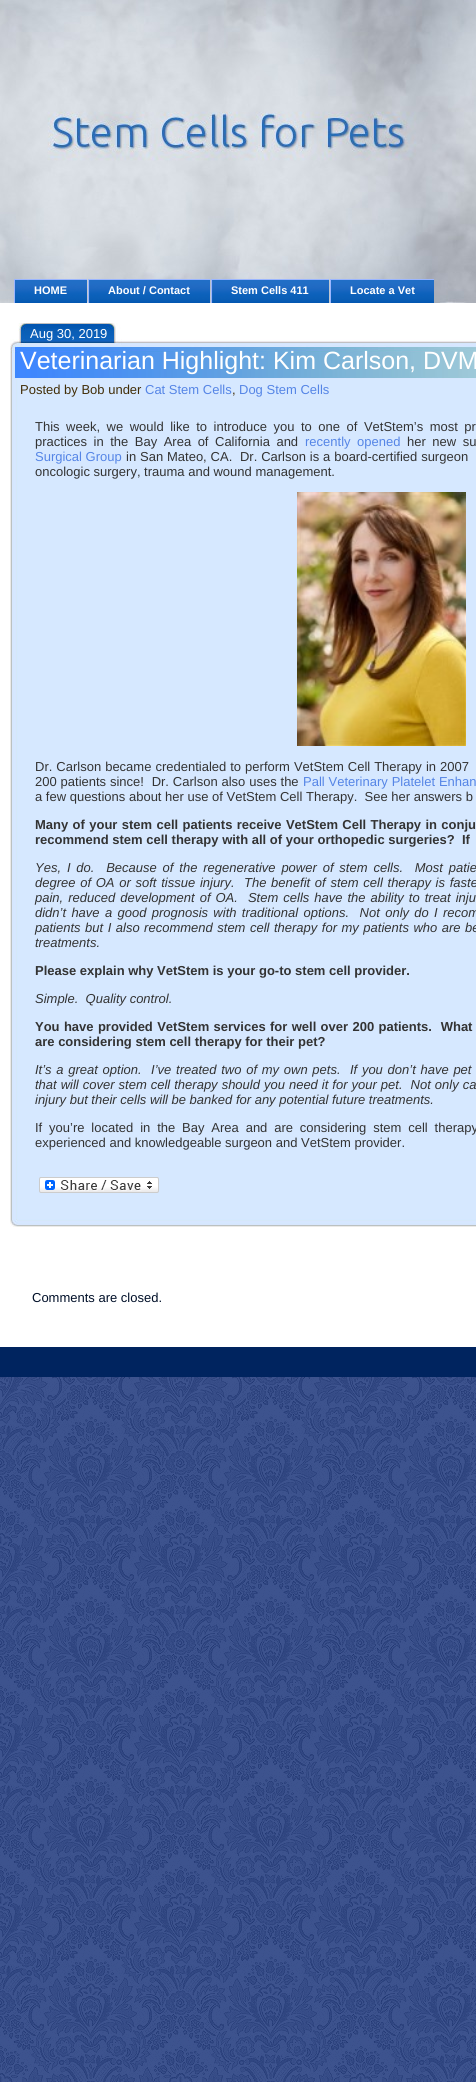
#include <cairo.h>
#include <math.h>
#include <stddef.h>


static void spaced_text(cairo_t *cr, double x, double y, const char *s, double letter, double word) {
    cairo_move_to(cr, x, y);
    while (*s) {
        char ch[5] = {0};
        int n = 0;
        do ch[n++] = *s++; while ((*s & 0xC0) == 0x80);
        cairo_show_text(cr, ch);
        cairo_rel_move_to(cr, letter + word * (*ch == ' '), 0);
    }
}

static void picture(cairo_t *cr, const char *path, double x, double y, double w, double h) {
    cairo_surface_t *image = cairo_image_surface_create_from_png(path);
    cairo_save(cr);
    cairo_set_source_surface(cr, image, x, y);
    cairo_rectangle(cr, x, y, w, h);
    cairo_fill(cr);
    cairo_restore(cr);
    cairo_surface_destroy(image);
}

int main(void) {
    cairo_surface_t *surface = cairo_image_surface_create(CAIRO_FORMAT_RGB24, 476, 2082);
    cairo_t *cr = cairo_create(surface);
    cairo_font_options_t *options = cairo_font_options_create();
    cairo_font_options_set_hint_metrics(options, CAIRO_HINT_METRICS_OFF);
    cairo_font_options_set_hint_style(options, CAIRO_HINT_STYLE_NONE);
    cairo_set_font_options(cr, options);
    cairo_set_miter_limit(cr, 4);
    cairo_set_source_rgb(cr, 1, 1, 1);
    cairo_paint(cr);
    picture(cr, "img1.png", 0, 1377, 476, 705);
    picture(cr, "img2.png", 0, 0, 476, 273);
    picture(cr, "img3.png", 0, 273, 476, 30);
    picture(cr, "img4.png", 14, 279, 73, 24);
    cairo_select_font_face(cr, "Liberation Sans", CAIRO_FONT_SLANT_NORMAL, CAIRO_FONT_WEIGHT_BOLD);
    cairo_set_font_size(cr, 11);
    cairo_set_source_rgb(cr, 1, 1, 1);
    cairo_move_to(cr, 34, 294);
    cairo_show_text(cr, "HOME");
    picture(cr, "img5.png", 88, 279, 122, 24);
    cairo_move_to(cr, 108, 294);
    cairo_show_text(cr, "About / Contact");
    picture(cr, "img6.png", 211, 279, 118, 24);
    cairo_move_to(cr, 231, 294);
    cairo_show_text(cr, "Stem Cells 411");
    picture(cr, "img7.png", 330, 279, 104, 24);
    cairo_move_to(cr, 350, 294);
    cairo_show_text(cr, "Locate a Vet");
    picture(cr, "img8.png", 10, 323, 466, 22);
    cairo_select_font_face(cr, "Liberation Sans", CAIRO_FONT_SLANT_NORMAL, CAIRO_FONT_WEIGHT_NORMAL);
    cairo_set_font_size(cr, 13);
    cairo_move_to(cr, 30, 338);
    cairo_show_text(cr, "Aug 30, 2019");
    picture(cr, "img9.png", 10, 345, 466, 34);
    cairo_set_font_size(cr, 25);
    cairo_move_to(cr, 20, 369);
    cairo_show_text(cr, "Veterinarian Highlight: Kim Carlson, DVM");
    picture(cr, "img10.png", 10, 379, 466, 22);
    cairo_set_font_size(cr, 13);
    cairo_set_source_rgb(cr, 0.259, 0.18, 0.035);
    cairo_move_to(cr, 20, 394);
    cairo_show_text(cr, "Posted by Bob under");
    cairo_set_source_rgb(cr, 0.333, 0.522, 0.902);
    cairo_move_to(cr, 145, 394);
    cairo_show_text(cr, "Cat Stem Cells");
    cairo_set_source_rgb(cr, 0.259, 0.18, 0.035);
    cairo_move_to(cr, 232, 394);
    cairo_show_text(cr, ",");
    cairo_set_source_rgb(cr, 0.333, 0.522, 0.902);
    cairo_move_to(cr, 239, 394);
    cairo_show_text(cr, "Dog Stem Cells");
    picture(cr, "img11.png", 10, 401, 466, 818);
    cairo_set_source_rgb(cr, 0.2, 0.2, 0.2);
    spaced_text(cr, 35, 431, "This week, we would like to introduce you to one of VetStem’s most pr", 0, 2.9);
    spaced_text(cr, 35, 446, "practices in the Bay Area of California and", 0, 2.9);
    cairo_set_source_rgb(cr, 0.333, 0.522, 0.902);
    spaced_text(cr, 305, 446, "recently opened", 0, 2.9);
    cairo_set_source_rgb(cr, 0.2, 0.2, 0.2);
    spaced_text(cr, 407, 446, "her new su", 0, 2.9);
    cairo_set_source_rgb(cr, 0.333, 0.522, 0.902);
    cairo_move_to(cr, 35, 461);
    cairo_show_text(cr, "Surgical Group");
    cairo_set_source_rgb(cr, 0.2, 0.2, 0.2);
    spaced_text(cr, 126, 461, "in San Mateo, CA.  Dr. Carlson is a board-certified surgeon", 0, 0.25);
    cairo_move_to(cr, 35, 476);
    cairo_show_text(cr, "oncologic surgery, trauma and wound management.");
    picture(cr, "img12.png", 297, 492, 169, 254);
    spaced_text(cr, 35, 771, "Dr. Carlson became credentialed to perform VetStem Cell Therapy in 2007", 0, 0.4);
    spaced_text(cr, 35, 786, "200 patients since!  Dr. Carlson also uses the", 0, 0.25);
    cairo_set_source_rgb(cr, 0.333, 0.522, 0.902);
    spaced_text(cr, 303, 786, "Pall Veterinary Platelet Enhan", 0, 0.25);
    cairo_set_source_rgb(cr, 0.2, 0.2, 0.2);
    cairo_move_to(cr, 35, 801);
    cairo_show_text(cr, "a few questions about her use of VetStem Cell Therapy.  See her answers b");
    cairo_select_font_face(cr, "Liberation Sans", CAIRO_FONT_SLANT_NORMAL, CAIRO_FONT_WEIGHT_BOLD);
    spaced_text(cr, 35, 829, "Many of your stem cell patients receive VetStem Cell Therapy in conju", 0, 0.75);
    cairo_move_to(cr, 35, 844);
    cairo_show_text(cr, "recommend stem cell therapy with all of your orthopedic surgeries?  If");
    cairo_select_font_face(cr, "Liberation Sans", CAIRO_FONT_SLANT_ITALIC, CAIRO_FONT_WEIGHT_NORMAL);
    spaced_text(cr, 35, 872, "Yes, I do.  Because of the regenerative power of stem cells.  Most patie", 0, 2.25);
    spaced_text(cr, 35, 887, "degree of OA or soft tissue injury.  The benefit of stem cell therapy is faste", 0, 1.1);
    spaced_text(cr, 35, 902, "pain, reduced development of OA.  Stem cells have the ability to treat inju", 0, 1.4);
    spaced_text(cr, 35, 917, "didn’t have a good prognosis with traditional options.  Not only do I recom", 0, 1.7);
    spaced_text(cr, 35, 932, "patients but I also recommend stem cell therapy for my patients who are be", 0, 0.9);
    cairo_move_to(cr, 35, 947);
    cairo_show_text(cr, "treatments.");
    cairo_select_font_face(cr, "Liberation Sans", CAIRO_FONT_SLANT_NORMAL, CAIRO_FONT_WEIGHT_BOLD);
    cairo_move_to(cr, 35, 975);
    cairo_show_text(cr, "Please explain why VetStem is your go-to stem cell provider.");
    cairo_select_font_face(cr, "Liberation Sans", CAIRO_FONT_SLANT_ITALIC, CAIRO_FONT_WEIGHT_NORMAL);
    cairo_move_to(cr, 35, 1003);
    cairo_show_text(cr, "Simple.  Quality control.");
    cairo_select_font_face(cr, "Liberation Sans", CAIRO_FONT_SLANT_NORMAL, CAIRO_FONT_WEIGHT_BOLD);
    spaced_text(cr, 35, 1031, "You have provided VetStem services for well over 200 patients.  What", 0, 0.75);
    cairo_move_to(cr, 35, 1046);
    cairo_show_text(cr, "are considering stem cell therapy for their pet?");
    cairo_select_font_face(cr, "Liberation Sans", CAIRO_FONT_SLANT_ITALIC, CAIRO_FONT_WEIGHT_NORMAL);
    spaced_text(cr, 35, 1074, "It’s a great option.  I’ve treated two of my own pets.  If you don’t have pet", 0, 1.1);
    spaced_text(cr, 35, 1089, "that will cover stem cell therapy should you need it for your pet.  Not only ca", 0, 0.4);
    cairo_move_to(cr, 35, 1104);
    cairo_show_text(cr, "injury but their cells will be banked for any potential future treatments.");
    cairo_select_font_face(cr, "Liberation Sans", CAIRO_FONT_SLANT_NORMAL, CAIRO_FONT_WEIGHT_NORMAL);
    spaced_text(cr, 35, 1132, "If you’re located in the Bay Area and are considering stem cell therapy", 0, 3.25);
    cairo_move_to(cr, 35, 1147);
    cairo_show_text(cr, "experienced and knowledgeable surgeon and VetStem provider.");
    picture(cr, "img13.png", 39, 1177, 120, 16);
    picture(cr, "img14.png", 10, 1219, 466, 8);
    cairo_set_source_rgb(cr, 0, 0.059, 0.157);
    cairo_move_to(cr, 32, 1302);
    cairo_show_text(cr, "Comments are closed.");
    cairo_set_source_rgb(cr, 0, 0.141, 0.373);
    cairo_rectangle(cr, 0, 1347, 476, 30);
    cairo_fill(cr);
    cairo_surface_write_to_png(surface, "page.png");
    cairo_font_options_destroy(options);
    cairo_destroy(cr);
    cairo_surface_destroy(surface);
    return 0;
}
